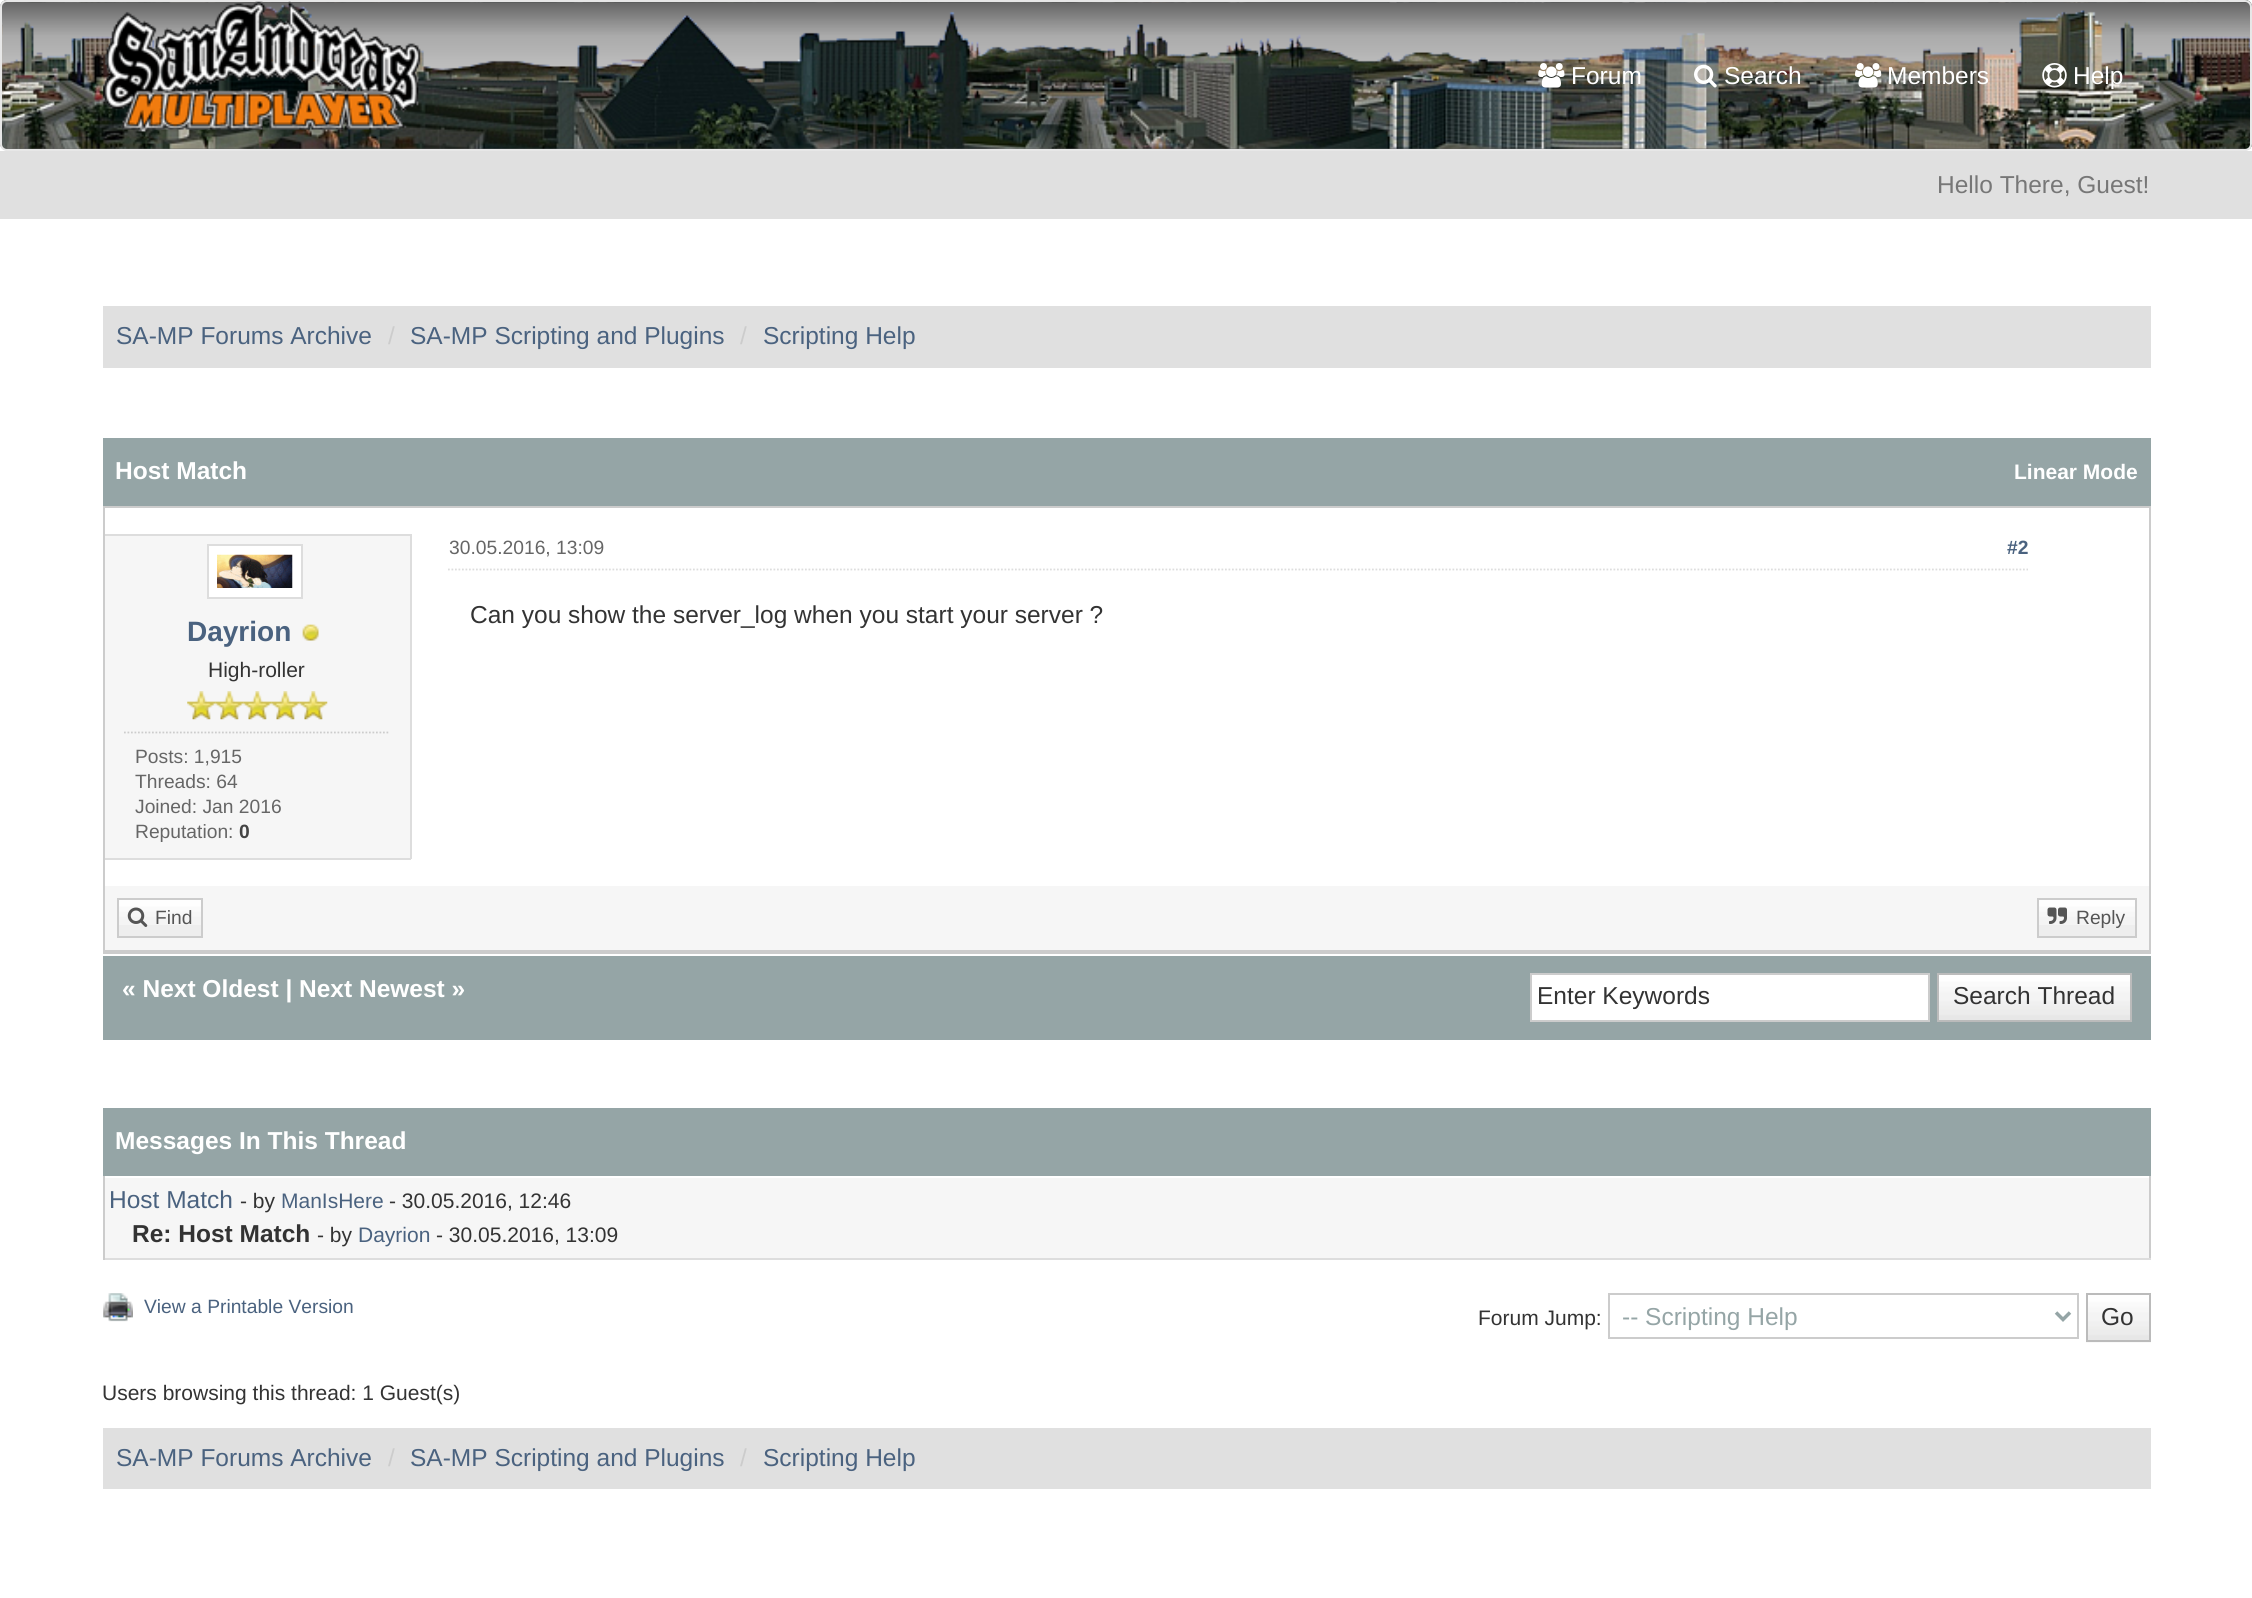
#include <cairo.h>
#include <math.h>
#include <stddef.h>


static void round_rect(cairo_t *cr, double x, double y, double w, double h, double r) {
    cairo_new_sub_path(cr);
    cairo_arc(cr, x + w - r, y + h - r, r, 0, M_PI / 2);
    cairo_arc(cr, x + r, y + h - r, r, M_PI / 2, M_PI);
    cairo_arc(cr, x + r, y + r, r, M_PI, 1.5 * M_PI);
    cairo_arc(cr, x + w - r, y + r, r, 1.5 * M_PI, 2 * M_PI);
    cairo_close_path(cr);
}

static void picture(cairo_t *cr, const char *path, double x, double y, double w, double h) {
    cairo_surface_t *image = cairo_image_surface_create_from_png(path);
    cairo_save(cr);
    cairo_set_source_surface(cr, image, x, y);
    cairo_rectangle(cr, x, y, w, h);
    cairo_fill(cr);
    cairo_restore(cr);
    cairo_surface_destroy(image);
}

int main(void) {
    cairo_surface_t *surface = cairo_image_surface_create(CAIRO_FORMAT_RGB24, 2252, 1598);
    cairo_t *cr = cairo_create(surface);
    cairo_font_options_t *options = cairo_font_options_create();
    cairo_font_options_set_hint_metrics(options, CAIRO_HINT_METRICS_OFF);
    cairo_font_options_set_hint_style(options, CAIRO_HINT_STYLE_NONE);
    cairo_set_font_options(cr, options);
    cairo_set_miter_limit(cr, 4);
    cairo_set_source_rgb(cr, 1, 1, 1);
    cairo_paint(cr);
    picture(cr, "img1.png", 0, 0, 2252, 151);
    round_rect(cr, 1, 1, 2250, 149, 6);
    cairo_set_source_rgb(cr, 0.906, 0.906, 0.906);
    cairo_stroke(cr);
    picture(cr, "img2.png", 103, 1, 318, 131);
    picture(cr, "img3.png", 1538, 63, 27, 25);
    cairo_select_font_face(cr, "Liberation Sans", CAIRO_FONT_SLANT_NORMAL, CAIRO_FONT_WEIGHT_NORMAL);
    cairo_set_font_size(cr, 24.5);
    cairo_set_source_rgb(cr, 1, 1, 1);
    cairo_move_to(cr, 1571, 84);
    cairo_show_text(cr, "Forum");
    picture(cr, "img4.png", 1694, 64, 23, 24);
    cairo_move_to(cr, 1724, 84);
    cairo_show_text(cr, "Search");
    picture(cr, "img5.png", 1855, 63, 27, 25);
    cairo_move_to(cr, 1887, 84);
    cairo_show_text(cr, "Members");
    picture(cr, "img6.png", 2042, 63, 25, 25);
    cairo_move_to(cr, 2073, 84);
    cairo_show_text(cr, "Help");
    cairo_set_source_rgb(cr, 0.878, 0.878, 0.878);
    cairo_rectangle(cr, 0, 151, 2252, 68);
    cairo_fill(cr);
    cairo_set_source_rgb(cr, 0.467, 0.467, 0.467);
    cairo_move_to(cr, 1937, 193);
    cairo_show_text(cr, "Hello There, Guest!");
    cairo_set_source_rgb(cr, 0.878, 0.878, 0.878);
    cairo_rectangle(cr, 103, 306, 2048, 62);
    cairo_fill(cr);
    cairo_set_source_rgb(cr, 0.29, 0.384, 0.498);
    cairo_move_to(cr, 116, 344);
    cairo_show_text(cr, "SA-MP Forums Archive");
    cairo_set_source_rgb(cr, 0.8, 0.8, 0.8);
    cairo_move_to(cr, 388, 344);
    cairo_show_text(cr, "/");
    cairo_set_source_rgb(cr, 0.29, 0.384, 0.498);
    cairo_move_to(cr, 410, 344);
    cairo_show_text(cr, "SA-MP Scripting and Plugins");
    cairo_set_source_rgb(cr, 0.8, 0.8, 0.8);
    cairo_move_to(cr, 740, 344);
    cairo_show_text(cr, "/");
    cairo_set_source_rgb(cr, 0.29, 0.384, 0.498);
    cairo_move_to(cr, 763, 344);
    cairo_show_text(cr, "Scripting Help");
    cairo_set_source_rgb(cr, 0.584, 0.647, 0.651);
    cairo_rectangle(cr, 103, 438, 2048, 68);
    cairo_fill(cr);
    cairo_select_font_face(cr, "Liberation Sans", CAIRO_FONT_SLANT_NORMAL, CAIRO_FONT_WEIGHT_BOLD);
    cairo_set_source_rgb(cr, 1, 1, 1);
    cairo_move_to(cr, 115, 479);
    cairo_show_text(cr, "Host Match");
    cairo_set_font_size(cr, 21);
    cairo_move_to(cr, 2014, 479);
    cairo_show_text(cr, "Linear Mode");
    cairo_rectangle(cr, 104, 507, 2046, 446);
    cairo_set_source_rgb(cr, 0.8, 0.8, 0.8);
    cairo_stroke(cr);
    cairo_new_path(cr);
    cairo_move_to(cr, 448, 569.5);
    cairo_line_to(cr, 2028, 569.5);
    cairo_set_source_rgb(cr, 0.867, 0.867, 0.867);
    cairo_set_line_width(cr, 1.8);
    cairo_set_dash(cr, (double[]){1.75, 1.75}, 2, 0);
    cairo_stroke(cr);
    cairo_select_font_face(cr, "Liberation Sans", CAIRO_FONT_SLANT_NORMAL, CAIRO_FONT_WEIGHT_NORMAL);
    cairo_set_font_size(cr, 19.25);
    cairo_set_source_rgb(cr, 0.4, 0.4, 0.4);
    cairo_move_to(cr, 449, 554);
    cairo_show_text(cr, "30.05.2016, 13:09");
    cairo_select_font_face(cr, "Liberation Sans", CAIRO_FONT_SLANT_NORMAL, CAIRO_FONT_WEIGHT_BOLD);
    cairo_set_source_rgb(cr, 0.29, 0.384, 0.498);
    cairo_move_to(cr, 2007, 554);
    cairo_show_text(cr, "#2");
    cairo_select_font_face(cr, "Liberation Sans", CAIRO_FONT_SLANT_NORMAL, CAIRO_FONT_WEIGHT_NORMAL);
    cairo_set_font_size(cr, 24.5);
    cairo_set_source_rgb(cr, 0.2, 0.2, 0.2);
    cairo_move_to(cr, 470, 623);
    cairo_show_text(cr, "Can you show the server_log when you start your server ?");
    cairo_set_source_rgb(cr, 0.961, 0.961, 0.961);
    cairo_rectangle(cr, 105, 536, 305, 322);
    cairo_fill(cr);
    cairo_set_source_rgb(cr, 0.867, 0.867, 0.867);
    cairo_rectangle(cr, 105, 534, 306, 2);
    cairo_fill(cr);
    cairo_rectangle(cr, 410, 534, 2, 325);
    cairo_fill(cr);
    cairo_rectangle(cr, 105, 858, 306, 2);
    cairo_fill(cr);
    cairo_set_source_rgb(cr, 1, 1, 1);
    cairo_rectangle(cr, 208, 545, 94, 53);
    cairo_fill_preserve(cr);
    cairo_set_source_rgb(cr, 0.867, 0.867, 0.867);
    cairo_set_line_width(cr, 2);
    cairo_set_dash(cr, NULL, 0, 0);
    cairo_stroke(cr);
    picture(cr, "img7.png", 217, 554, 76, 34);
    cairo_select_font_face(cr, "Liberation Sans", CAIRO_FONT_SLANT_NORMAL, CAIRO_FONT_WEIGHT_BOLD);
    cairo_set_font_size(cr, 28);
    cairo_set_source_rgb(cr, 0.29, 0.384, 0.498);
    cairo_move_to(cr, 187, 641);
    cairo_show_text(cr, "Dayrion");
    picture(cr, "img8.png", 302, 624, 17, 17);
    cairo_select_font_face(cr, "Liberation Sans", CAIRO_FONT_SLANT_NORMAL, CAIRO_FONT_WEIGHT_NORMAL);
    cairo_set_font_size(cr, 21);
    cairo_set_source_rgb(cr, 0.2, 0.2, 0.2);
    cairo_move_to(cr, 208, 677);
    cairo_show_text(cr, "High-roller");
    picture(cr, "img9.png", 187, 691, 29, 29);
    picture(cr, "img10.png", 215, 691, 29, 29);
    picture(cr, "img10.png", 243, 691, 29, 29);
    picture(cr, "img10.png", 271, 691, 29, 29);
    picture(cr, "img10.png", 299, 691, 29, 29);
    cairo_new_path(cr);
    cairo_move_to(cr, 124, 732.5);
    cairo_line_to(cr, 388.5, 732.5);
    cairo_set_source_rgb(cr, 0.8, 0.8, 0.8);
    cairo_set_line_width(cr, 1.8);
    cairo_set_dash(cr, (double[]){1.75, 1.75}, 2, 0);
    cairo_stroke(cr);
    cairo_set_font_size(cr, 19.25);
    cairo_set_source_rgb(cr, 0.4, 0.4, 0.4);
    cairo_move_to(cr, 135, 763);
    cairo_show_text(cr, "Posts: 1,915");
    cairo_move_to(cr, 135, 788);
    cairo_show_text(cr, "Threads: 64");
    cairo_move_to(cr, 135, 813);
    cairo_show_text(cr, "Joined: Jan 2016");
    cairo_move_to(cr, 135, 838);
    cairo_show_text(cr, "Reputation:");
    cairo_select_font_face(cr, "Liberation Sans", CAIRO_FONT_SLANT_NORMAL, CAIRO_FONT_WEIGHT_BOLD);
    cairo_set_source_rgb(cr, 0.267, 0.267, 0.267);
    cairo_move_to(cr, 239, 838);
    cairo_show_text(cr, "0");
    cairo_set_source_rgb(cr, 0.961, 0.961, 0.961);
    cairo_rectangle(cr, 105, 886, 2044, 64);
    cairo_fill(cr);
    cairo_set_source_rgb(cr, 0.8, 0.8, 0.8);
    cairo_rectangle(cr, 105, 950, 2044, 2);
    cairo_fill(cr);
    cairo_set_source_rgb(cr, 0.933, 0.933, 0.933);
    cairo_rectangle(cr, 119, 925, 82, 11);
    cairo_fill(cr);
    picture(cr, "img11.png", 119, 900, 82, 25);
    cairo_rectangle(cr, 118, 899, 84, 38);
    cairo_set_source_rgb(cr, 0.8, 0.8, 0.8);
    cairo_set_line_width(cr, 2);
    cairo_set_dash(cr, NULL, 0, 0);
    cairo_stroke(cr);
    picture(cr, "img12.png", 127, 907, 21, 20);
    cairo_select_font_face(cr, "Liberation Sans", CAIRO_FONT_SLANT_NORMAL, CAIRO_FONT_WEIGHT_NORMAL);
    cairo_set_source_rgb(cr, 0.333, 0.333, 0.333);
    cairo_move_to(cr, 155, 924);
    cairo_show_text(cr, "Find");
    cairo_set_source_rgb(cr, 0.933, 0.933, 0.933);
    cairo_rectangle(cr, 2039, 925, 96, 11);
    cairo_fill(cr);
    picture(cr, "img13.png", 2039, 900, 96, 25);
    cairo_rectangle(cr, 2038, 899, 98, 38);
    cairo_set_source_rgb(cr, 0.8, 0.8, 0.8);
    cairo_stroke(cr);
    picture(cr, "img14.png", 2047, 907, 20, 17);
    cairo_set_source_rgb(cr, 0.333, 0.333, 0.333);
    cairo_move_to(cr, 2076, 924);
    cairo_show_text(cr, "Reply");
    cairo_set_source_rgb(cr, 0.584, 0.647, 0.651);
    cairo_rectangle(cr, 103, 956, 2048, 84);
    cairo_fill(cr);
    cairo_select_font_face(cr, "Liberation Sans", CAIRO_FONT_SLANT_NORMAL, CAIRO_FONT_WEIGHT_BOLD);
    cairo_set_font_size(cr, 24.5);
    cairo_set_source_rgb(cr, 1, 1, 1);
    cairo_move_to(cr, 122, 997);
    cairo_show_text(cr, "« Next Oldest | Next Newest »");
    cairo_rectangle(cr, 1531, 974, 398, 47);
    cairo_fill_preserve(cr);
    cairo_set_source_rgb(cr, 0.8, 0.8, 0.8);
    cairo_stroke(cr);
    cairo_select_font_face(cr, "Liberation Sans", CAIRO_FONT_SLANT_NORMAL, CAIRO_FONT_WEIGHT_NORMAL);
    cairo_set_source_rgb(cr, 0.2, 0.2, 0.2);
    cairo_move_to(cr, 1537, 1004);
    cairo_show_text(cr, "Enter Keywords");
    picture(cr, "img15.png", 1939, 975, 191, 45);
    cairo_rectangle(cr, 1938, 974, 193, 47);
    cairo_set_source_rgb(cr, 0.733, 0.733, 0.733);
    cairo_stroke(cr);
    cairo_set_source_rgb(cr, 0.2, 0.2, 0.2);
    cairo_move_to(cr, 1953, 1004);
    cairo_show_text(cr, "Search Thread");
    cairo_set_source_rgb(cr, 0.584, 0.647, 0.651);
    cairo_rectangle(cr, 103, 1108, 2048, 68);
    cairo_fill(cr);
    cairo_select_font_face(cr, "Liberation Sans", CAIRO_FONT_SLANT_NORMAL, CAIRO_FONT_WEIGHT_BOLD);
    cairo_set_source_rgb(cr, 1, 1, 1);
    cairo_move_to(cr, 115, 1149);
    cairo_show_text(cr, "Messages In This Thread");
    cairo_set_source_rgb(cr, 0.961, 0.961, 0.961);
    cairo_rectangle(cr, 105, 1178, 2044, 80);
    cairo_fill(cr);
    cairo_set_source_rgb(cr, 0.8, 0.8, 0.8);
    cairo_rectangle(cr, 2149, 1176, 2, 84);
    cairo_fill(cr);
    cairo_set_source_rgb(cr, 0.867, 0.867, 0.867);
    cairo_rectangle(cr, 103, 1258, 2048, 2);
    cairo_fill(cr);
    cairo_set_source_rgb(cr, 0.8, 0.8, 0.8);
    cairo_rectangle(cr, 103, 1176, 2, 84);
    cairo_fill(cr);
    cairo_select_font_face(cr, "Liberation Sans", CAIRO_FONT_SLANT_NORMAL, CAIRO_FONT_WEIGHT_NORMAL);
    cairo_set_source_rgb(cr, 0.29, 0.384, 0.498);
    cairo_move_to(cr, 109, 1208);
    cairo_show_text(cr, "Host Match");
    cairo_set_font_size(cr, 21);
    cairo_set_source_rgb(cr, 0.2, 0.2, 0.2);
    cairo_move_to(cr, 240, 1208);
    cairo_show_text(cr, "- by");
    cairo_set_source_rgb(cr, 0.29, 0.384, 0.498);
    cairo_move_to(cr, 281, 1208);
    cairo_show_text(cr, "ManIsHere");
    cairo_set_source_rgb(cr, 0.2, 0.2, 0.2);
    cairo_move_to(cr, 389, 1208);
    cairo_show_text(cr, "- 30.05.2016, 12:46");
    cairo_select_font_face(cr, "Liberation Sans", CAIRO_FONT_SLANT_NORMAL, CAIRO_FONT_WEIGHT_BOLD);
    cairo_set_font_size(cr, 24.5);
    cairo_move_to(cr, 132, 1242);
    cairo_show_text(cr, "Re: Host Match");
    cairo_select_font_face(cr, "Liberation Sans", CAIRO_FONT_SLANT_NORMAL, CAIRO_FONT_WEIGHT_NORMAL);
    cairo_set_font_size(cr, 21);
    cairo_move_to(cr, 317, 1242);
    cairo_show_text(cr, "- by");
    cairo_set_source_rgb(cr, 0.29, 0.384, 0.498);
    cairo_move_to(cr, 358, 1242);
    cairo_show_text(cr, "Dayrion");
    cairo_set_source_rgb(cr, 0.2, 0.2, 0.2);
    cairo_move_to(cr, 436, 1242);
    cairo_show_text(cr, "- 30.05.2016, 13:09");
    picture(cr, "img16.png", 103, 1293, 30, 29);
    cairo_set_font_size(cr, 19.25);
    cairo_set_source_rgb(cr, 0.29, 0.384, 0.498);
    cairo_move_to(cr, 144, 1313);
    cairo_show_text(cr, "View a Printable Version");
    cairo_set_font_size(cr, 21);
    cairo_set_source_rgb(cr, 0.2, 0.2, 0.2);
    cairo_move_to(cr, 1478, 1325);
    cairo_show_text(cr, "Forum Jump:");
    cairo_rectangle(cr, 1609, 1294, 469, 44);
    cairo_set_source_rgb(cr, 0.8, 0.8, 0.8);
    cairo_stroke(cr);
    cairo_new_path(cr);
    cairo_move_to(cr, 2056, 1312.5);
    cairo_line_to(cr, 2063, 1319.5);
    cairo_line_to(cr, 2070, 1312.5);
    cairo_set_source_rgb(cr, 0.584, 0.647, 0.651);
    cairo_set_line_width(cr, 3.5);
    cairo_stroke(cr);
    cairo_set_font_size(cr, 24.5);
    cairo_move_to(cr, 1622, 1325);
    cairo_show_text(cr, "-- Scripting Help");
    picture(cr, "img17.png", 2086, 1295, 65, 48);
    cairo_rectangle(cr, 2087, 1294, 63, 47);
    cairo_set_source_rgb(cr, 0.733, 0.733, 0.733);
    cairo_set_line_width(cr, 2);
    cairo_stroke(cr);
    cairo_set_source_rgb(cr, 0.2, 0.2, 0.2);
    cairo_move_to(cr, 2101, 1325);
    cairo_show_text(cr, "Go");
    cairo_set_font_size(cr, 21);
    cairo_move_to(cr, 102, 1400);
    cairo_show_text(cr, "Users browsing this thread: 1 Guest(s)");
    cairo_set_source_rgb(cr, 0.878, 0.878, 0.878);
    cairo_rectangle(cr, 103, 1428, 2048, 61);
    cairo_fill(cr);
    cairo_set_font_size(cr, 24.5);
    cairo_set_source_rgb(cr, 0.29, 0.384, 0.498);
    cairo_move_to(cr, 116, 1466);
    cairo_show_text(cr, "SA-MP Forums Archive");
    cairo_set_source_rgb(cr, 0.8, 0.8, 0.8);
    cairo_move_to(cr, 388, 1466);
    cairo_show_text(cr, "/");
    cairo_set_source_rgb(cr, 0.29, 0.384, 0.498);
    cairo_move_to(cr, 410, 1466);
    cairo_show_text(cr, "SA-MP Scripting and Plugins");
    cairo_set_source_rgb(cr, 0.8, 0.8, 0.8);
    cairo_move_to(cr, 740, 1466);
    cairo_show_text(cr, "/");
    cairo_set_source_rgb(cr, 0.29, 0.384, 0.498);
    cairo_move_to(cr, 763, 1466);
    cairo_show_text(cr, "Scripting Help");
    cairo_surface_write_to_png(surface, "page.png");
    cairo_font_options_destroy(options);
    cairo_destroy(cr);
    cairo_surface_destroy(surface);
    return 0;
}
